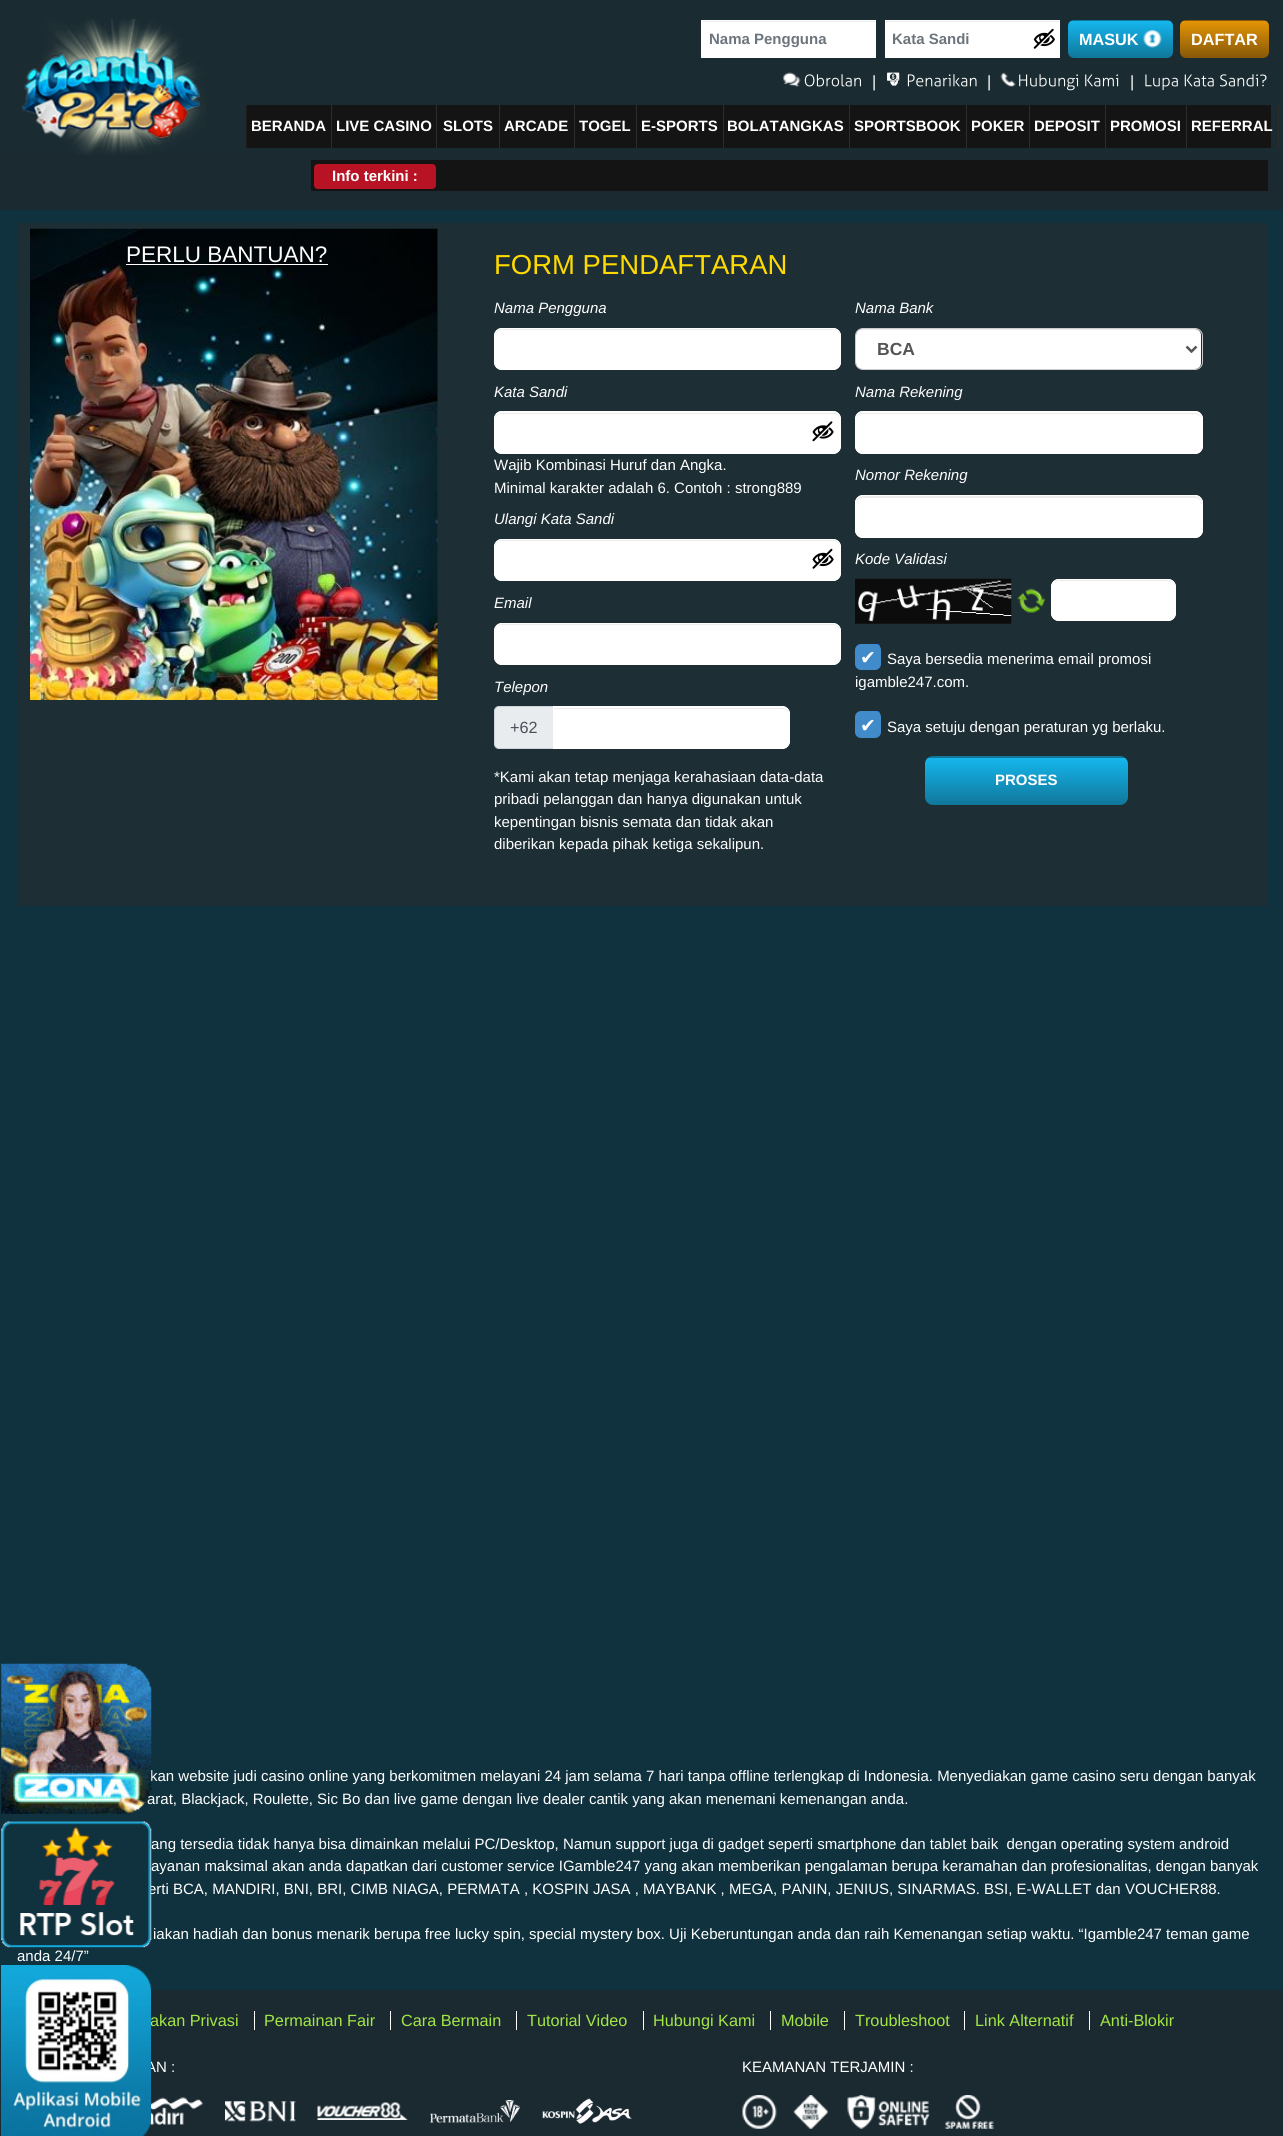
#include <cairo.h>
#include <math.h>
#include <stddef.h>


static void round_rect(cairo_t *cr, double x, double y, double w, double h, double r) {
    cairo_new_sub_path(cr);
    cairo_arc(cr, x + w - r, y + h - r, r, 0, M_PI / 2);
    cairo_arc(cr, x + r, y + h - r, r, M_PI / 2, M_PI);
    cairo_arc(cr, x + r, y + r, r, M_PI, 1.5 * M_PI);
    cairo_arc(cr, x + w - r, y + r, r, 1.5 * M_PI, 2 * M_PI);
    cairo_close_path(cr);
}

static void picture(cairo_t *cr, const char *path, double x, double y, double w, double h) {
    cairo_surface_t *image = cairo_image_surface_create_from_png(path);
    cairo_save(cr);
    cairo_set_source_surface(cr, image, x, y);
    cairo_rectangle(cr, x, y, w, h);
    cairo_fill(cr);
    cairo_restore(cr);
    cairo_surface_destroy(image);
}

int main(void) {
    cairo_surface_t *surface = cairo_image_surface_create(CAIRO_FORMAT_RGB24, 1283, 2136);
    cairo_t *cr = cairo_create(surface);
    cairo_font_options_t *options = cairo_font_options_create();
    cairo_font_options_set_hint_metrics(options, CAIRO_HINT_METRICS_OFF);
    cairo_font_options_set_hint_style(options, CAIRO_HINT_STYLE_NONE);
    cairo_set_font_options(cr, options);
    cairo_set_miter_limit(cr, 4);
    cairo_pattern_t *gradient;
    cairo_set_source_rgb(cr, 0.063, 0.196, 0.243);
    cairo_paint(cr);
    cairo_set_source_rgb(cr, 0.102, 0.169, 0.192);
    cairo_rectangle(cr, 0, 0, 1283, 154);
    cairo_fill(cr);
    cairo_set_source_rgb(cr, 0.106, 0.165, 0.192);
    cairo_rectangle(cr, 0, 154, 1283, 56);
    cairo_fill(cr);
    picture(cr, "img1.png", 21, 18, 185, 137);
    cairo_set_source_rgb(cr, 1, 1, 1);
    cairo_rectangle(cr, 701, 20, 175, 38);
    cairo_fill(cr);
    cairo_set_source_rgb(cr, 0.925, 0.925, 0.925);
    cairo_rectangle(cr, 703, 21, 172, 1);
    cairo_fill(cr);
    cairo_select_font_face(cr, "Liberation Sans", CAIRO_FONT_SLANT_NORMAL, CAIRO_FONT_WEIGHT_BOLD);
    cairo_set_font_size(cr, 15);
    cairo_set_source_rgb(cr, 0.424, 0.459, 0.49);
    cairo_move_to(cr, 709, 44);
    cairo_show_text(cr, "Nama Pengguna");
    cairo_set_source_rgb(cr, 1, 1, 1);
    cairo_rectangle(cr, 885, 20, 175, 38);
    cairo_fill(cr);
    cairo_set_source_rgb(cr, 0.925, 0.925, 0.925);
    cairo_rectangle(cr, 886, 21, 173, 1);
    cairo_fill(cr);
    cairo_set_source_rgb(cr, 0.424, 0.459, 0.49);
    cairo_move_to(cr, 892, 44);
    cairo_show_text(cr, "Kata Sandi");
    picture(cr, "img2.png", 1033, 28, 22, 21);
    cairo_save(cr);
    round_rect(cr, 1068, 20, 105, 38, 6);
    cairo_clip(cr);
    gradient = cairo_pattern_create_linear(1120, -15, 1120, 21);
    cairo_pattern_add_color_stop_rgba(gradient, 0, 0.082, 0.714, 0.929, 1);
    cairo_pattern_add_color_stop_rgba(gradient, 1, 0.063, 0.467, 0.604, 1);
    cairo_set_source(cr, gradient);
    cairo_pattern_destroy(gradient);
    cairo_rectangle(cr, 1068, 20, 105, 1);
    cairo_fill(cr);
    gradient = cairo_pattern_create_linear(1120, 21, 1120, 58);
    cairo_pattern_add_color_stop_rgba(gradient, 0, 0.082, 0.714, 0.929, 1);
    cairo_pattern_add_color_stop_rgba(gradient, 1, 0.063, 0.467, 0.604, 1);
    cairo_set_source(cr, gradient);
    cairo_pattern_destroy(gradient);
    cairo_new_path(cr);
    cairo_move_to(cr, 1068, 21);
    cairo_line_to(cr, 1173, 21);
    cairo_line_to(cr, 1173, 52);
    cairo_curve_to(cr, 1173, 55.5, 1170.5, 58, 1167, 58);
    cairo_line_to(cr, 1074, 58);
    cairo_curve_to(cr, 1070.5, 58, 1068, 55.5, 1068, 52);
    cairo_close_path(cr);
    cairo_fill(cr);
    cairo_restore(cr);
    cairo_set_font_size(cr, 16.25);
    cairo_set_source_rgb(cr, 1, 1, 1);
    cairo_move_to(cr, 1079, 45);
    cairo_show_text(cr, "MASUK");
    picture(cr, "img3.png", 1143, 30, 19, 18);
    cairo_save(cr);
    round_rect(cr, 1180, 20, 89, 38, 6);
    cairo_clip(cr);
    gradient = cairo_pattern_create_linear(1224, -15, 1224, 21);
    cairo_pattern_add_color_stop_rgba(gradient, 0, 0.894, 0.58, 0.024, 1);
    cairo_pattern_add_color_stop_rgba(gradient, 1, 0.525, 0.345, 0.031, 1);
    cairo_set_source(cr, gradient);
    cairo_pattern_destroy(gradient);
    cairo_rectangle(cr, 1180, 20, 89, 1);
    cairo_fill(cr);
    gradient = cairo_pattern_create_linear(1224, 21, 1224, 58);
    cairo_pattern_add_color_stop_rgba(gradient, 0, 0.894, 0.58, 0.024, 1);
    cairo_pattern_add_color_stop_rgba(gradient, 1, 0.525, 0.345, 0.031, 1);
    cairo_set_source(cr, gradient);
    cairo_pattern_destroy(gradient);
    cairo_new_path(cr);
    cairo_move_to(cr, 1180, 21);
    cairo_line_to(cr, 1269, 21);
    cairo_line_to(cr, 1269, 52);
    cairo_curve_to(cr, 1269, 55.5, 1266.5, 58, 1263, 58);
    cairo_line_to(cr, 1186, 58);
    cairo_curve_to(cr, 1182.5, 58, 1180, 55.5, 1180, 52);
    cairo_close_path(cr);
    cairo_fill(cr);
    cairo_restore(cr);
    cairo_move_to(cr, 1191, 45);
    cairo_show_text(cr, "DAFTAR");
    picture(cr, "img4.png", 782, 72, 19, 15);
    picture(cr, "img5.png", 804, 74, 57, 13);
    cairo_select_font_face(cr, "Liberation Sans", CAIRO_FONT_SLANT_NORMAL, CAIRO_FONT_WEIGHT_NORMAL);
    cairo_move_to(cr, 872, 87);
    cairo_show_text(cr, "|");
    picture(cr, "img6.png", 887, 72, 13, 14);
    picture(cr, "img7.png", 907, 74, 70, 13);
    cairo_move_to(cr, 987, 87);
    cairo_show_text(cr, "|");
    picture(cr, "img8.png", 1000, 72, 16, 15);
    picture(cr, "img9.png", 1019, 74, 100, 17);
    cairo_move_to(cr, 1130, 87);
    cairo_show_text(cr, "|");
    picture(cr, "img10.png", 1145, 74, 122, 17);
    cairo_set_source_rgb(cr, 0.082, 0.082, 0.082);
    cairo_rectangle(cr, 247, 105, 1024, 43);
    cairo_fill(cr);
    cairo_set_source_rgb(cr, 0.176, 0.176, 0.176);
    cairo_rectangle(cr, 331, 105, 1, 43);
    cairo_fill(cr);
    cairo_set_source_rgb(cr, 0.114, 0.114, 0.114);
    cairo_rectangle(cr, 246, 105, 1, 43);
    cairo_fill(cr);
    cairo_select_font_face(cr, "Liberation Sans", CAIRO_FONT_SLANT_NORMAL, CAIRO_FONT_WEIGHT_BOLD);
    cairo_set_font_size(cr, 15);
    cairo_set_source_rgb(cr, 1, 1, 1);
    cairo_move_to(cr, 251, 131);
    cairo_show_text(cr, "BERANDA");
    cairo_set_source_rgb(cr, 0.176, 0.176, 0.176);
    cairo_rectangle(cr, 436, 105, 1, 43);
    cairo_fill(cr);
    cairo_set_source_rgb(cr, 1, 1, 1);
    cairo_move_to(cr, 336, 131);
    cairo_show_text(cr, "LIVE CASINO");
    cairo_set_source_rgb(cr, 0.176, 0.176, 0.176);
    cairo_rectangle(cr, 499, 105, 1, 43);
    cairo_fill(cr);
    cairo_set_source_rgb(cr, 1, 1, 1);
    cairo_move_to(cr, 443, 131);
    cairo_show_text(cr, "SLOTS");
    cairo_set_source_rgb(cr, 0.176, 0.176, 0.176);
    cairo_rectangle(cr, 574, 105, 1, 43);
    cairo_fill(cr);
    cairo_set_source_rgb(cr, 1, 1, 1);
    cairo_move_to(cr, 504, 131);
    cairo_show_text(cr, "ARCADE");
    cairo_set_source_rgb(cr, 0.176, 0.176, 0.176);
    cairo_rectangle(cr, 636, 105, 1, 43);
    cairo_fill(cr);
    cairo_set_source_rgb(cr, 1, 1, 1);
    cairo_move_to(cr, 579, 131);
    cairo_show_text(cr, "TOGEL");
    cairo_set_source_rgb(cr, 0.176, 0.176, 0.176);
    cairo_rectangle(cr, 723, 105, 1, 43);
    cairo_fill(cr);
    cairo_set_source_rgb(cr, 1, 1, 1);
    cairo_move_to(cr, 641, 131);
    cairo_show_text(cr, "E-SPORTS");
    cairo_set_source_rgb(cr, 0.176, 0.176, 0.176);
    cairo_rectangle(cr, 849, 105, 1, 43);
    cairo_fill(cr);
    cairo_set_source_rgb(cr, 1, 1, 1);
    cairo_move_to(cr, 727, 131);
    cairo_show_text(cr, "BOLATANGKAS");
    cairo_set_source_rgb(cr, 0.176, 0.176, 0.176);
    cairo_rectangle(cr, 966, 105, 1, 43);
    cairo_fill(cr);
    cairo_set_source_rgb(cr, 1, 1, 1);
    cairo_move_to(cr, 854, 131);
    cairo_show_text(cr, "SPORTSBOOK");
    cairo_set_source_rgb(cr, 0.176, 0.176, 0.176);
    cairo_rectangle(cr, 1029, 105, 1, 43);
    cairo_fill(cr);
    cairo_set_source_rgb(cr, 1, 1, 1);
    cairo_move_to(cr, 971, 131);
    cairo_show_text(cr, "POKER");
    cairo_set_source_rgb(cr, 0.176, 0.176, 0.176);
    cairo_rectangle(cr, 1105, 105, 1, 43);
    cairo_fill(cr);
    cairo_set_source_rgb(cr, 1, 1, 1);
    cairo_move_to(cr, 1034, 131);
    cairo_show_text(cr, "DEPOSIT");
    cairo_set_source_rgb(cr, 0.176, 0.176, 0.176);
    cairo_rectangle(cr, 1186, 105, 1, 43);
    cairo_fill(cr);
    cairo_set_source_rgb(cr, 1, 1, 1);
    cairo_move_to(cr, 1110, 131);
    cairo_show_text(cr, "PROMOSI");
    cairo_set_source_rgb(cr, 0.176, 0.176, 0.176);
    cairo_rectangle(cr, 1278, 105, 1, 43);
    cairo_fill(cr);
    cairo_set_source_rgb(cr, 1, 1, 1);
    cairo_move_to(cr, 1191, 131);
    cairo_show_text(cr, "REFERRAL");
    cairo_set_source_rgb(cr, 0.082, 0.082, 0.082);
    cairo_rectangle(cr, 311, 160, 957, 31);
    cairo_fill(cr);
    cairo_set_source_rgb(cr, 0.718, 0.078, 0.141);
    round_rect(cr, 314, 164, 122, 25, 4);
    cairo_fill(cr);
    cairo_set_source_rgb(cr, 1, 1, 1);
    cairo_move_to(cr, 332, 181);
    cairo_show_text(cr, "Info terkini :");
    cairo_set_source_rgb(cr, 0.114, 0.18, 0.208);
    cairo_rectangle(cr, 18, 223, 1250, 683);
    cairo_fill(cr);
    picture(cr, "img11.png", 30, 228, 408, 472);
    cairo_select_font_face(cr, "Liberation Sans", CAIRO_FONT_SLANT_NORMAL, CAIRO_FONT_WEIGHT_NORMAL);
    cairo_set_font_size(cr, 22.5);
    cairo_set_source_rgb(cr, 1, 1, 1);
    cairo_move_to(cr, 126, 262);
    cairo_show_text(cr, "PERLU BANTUAN?");
    cairo_rectangle(cr, 126, 264, 202, 1);
    cairo_fill(cr);
    cairo_set_font_size(cr, 27.5);
    cairo_set_source_rgb(cr, 0.996, 0.855, 0);
    cairo_move_to(cr, 494, 274);
    cairo_show_text(cr, "FORM PENDAFTARAN");
    cairo_select_font_face(cr, "Liberation Sans", CAIRO_FONT_SLANT_ITALIC, CAIRO_FONT_WEIGHT_NORMAL);
    cairo_set_font_size(cr, 15);
    cairo_set_source_rgb(cr, 1, 1, 1);
    cairo_move_to(cr, 494, 313);
    cairo_show_text(cr, "Nama Pengguna");
    round_rect(cr, 494, 328, 347, 42, 8);
    cairo_fill(cr);
    cairo_set_source_rgb(cr, 0.925, 0.925, 0.925);
    cairo_new_path(cr);
    cairo_move_to(cr, 501, 330);
    cairo_line_to(cr, 834, 330);
    cairo_curve_to(cr, 837, 330, 840, 333, 840, 336);
    cairo_curve_to(cr, 840, 332, 838, 329, 834, 329);
    cairo_line_to(cr, 501, 329);
    cairo_curve_to(cr, 497, 329, 495, 332, 495, 336);
    cairo_curve_to(cr, 495, 333, 498, 330, 501, 330);
    cairo_close_path(cr);
    cairo_fill(cr);
    round_rect(cr, 494.5, 328.5, 346, 41, 7.5);
    cairo_set_source_rgb(cr, 1, 1, 1);
    cairo_set_line_width(cr, 1);
    cairo_stroke(cr);
    cairo_move_to(cr, 494, 397);
    cairo_show_text(cr, "Kata Sandi");
    round_rect(cr, 494, 411, 347, 43, 8);
    cairo_fill(cr);
    cairo_set_source_rgb(cr, 0.925, 0.925, 0.925);
    cairo_new_path(cr);
    cairo_move_to(cr, 501, 414);
    cairo_line_to(cr, 834, 414);
    cairo_curve_to(cr, 837, 414, 840, 417, 840, 420);
    cairo_curve_to(cr, 840, 416, 838, 413, 834, 413);
    cairo_line_to(cr, 501, 413);
    cairo_curve_to(cr, 497, 413, 495, 416, 495, 420);
    cairo_curve_to(cr, 495, 417, 498, 414, 501, 414);
    cairo_close_path(cr);
    cairo_fill(cr);
    round_rect(cr, 494.5, 411.5, 346, 42, 7.5);
    cairo_set_source_rgb(cr, 1, 1, 1);
    cairo_stroke(cr);
    picture(cr, "img12.png", 812, 421, 22, 21);
    cairo_select_font_face(cr, "Liberation Sans", CAIRO_FONT_SLANT_NORMAL, CAIRO_FONT_WEIGHT_NORMAL);
    cairo_move_to(cr, 494, 470);
    cairo_show_text(cr, "Wajib Kombinasi Huruf dan Angka.");
    cairo_move_to(cr, 494, 493);
    cairo_show_text(cr, "Minimal karakter adalah 6. Contoh : strong889");
    cairo_select_font_face(cr, "Liberation Sans", CAIRO_FONT_SLANT_ITALIC, CAIRO_FONT_WEIGHT_NORMAL);
    cairo_move_to(cr, 494, 524);
    cairo_show_text(cr, "Ulangi Kata Sandi");
    round_rect(cr, 494, 539, 347, 42, 8);
    cairo_fill(cr);
    cairo_set_source_rgb(cr, 0.925, 0.925, 0.925);
    cairo_new_path(cr);
    cairo_move_to(cr, 501, 541);
    cairo_line_to(cr, 834, 541);
    cairo_curve_to(cr, 837, 541, 840, 544, 840, 548);
    cairo_line_to(cr, 840, 546);
    cairo_curve_to(cr, 840, 543, 837, 540, 834, 540);
    cairo_line_to(cr, 501, 540);
    cairo_curve_to(cr, 498, 540, 495, 543, 495, 546);
    cairo_line_to(cr, 495, 548);
    cairo_curve_to(cr, 495, 544, 498, 541, 501, 541);
    cairo_close_path(cr);
    cairo_fill(cr);
    round_rect(cr, 494.5, 539.5, 346, 41, 7.5);
    cairo_set_source_rgb(cr, 1, 1, 1);
    cairo_stroke(cr);
    picture(cr, "img13.png", 812, 548, 22, 21);
    cairo_move_to(cr, 494, 608);
    cairo_show_text(cr, "Email");
    round_rect(cr, 494, 623, 347, 42, 8);
    cairo_fill(cr);
    cairo_set_source_rgb(cr, 0.925, 0.925, 0.925);
    cairo_new_path(cr);
    cairo_move_to(cr, 501, 625);
    cairo_line_to(cr, 834, 625);
    cairo_curve_to(cr, 837, 625, 840, 628, 840, 631);
    cairo_curve_to(cr, 840, 627, 838, 624, 834, 624);
    cairo_line_to(cr, 501, 624);
    cairo_curve_to(cr, 497, 624, 495, 627, 495, 631);
    cairo_curve_to(cr, 495, 628, 498, 625, 501, 625);
    cairo_close_path(cr);
    cairo_fill(cr);
    round_rect(cr, 494.5, 623.5, 346, 41, 7.5);
    cairo_set_source_rgb(cr, 1, 1, 1);
    cairo_stroke(cr);
    cairo_move_to(cr, 494, 692);
    cairo_show_text(cr, "Telepon");
    cairo_set_source_rgb(cr, 0.914, 0.925, 0.937);
    cairo_new_path(cr);
    cairo_move_to(cr, 499, 706.5);
    cairo_line_to(cr, 553.5, 706.5);
    cairo_line_to(cr, 553.5, 748.5);
    cairo_line_to(cr, 499, 748.5);
    cairo_curve_to(cr, 496.5, 748.5, 494.5, 746.5, 494.5, 744);
    cairo_line_to(cr, 494.5, 711);
    cairo_curve_to(cr, 494.5, 708.5, 496.5, 706.5, 499, 706.5);
    cairo_close_path(cr);
    cairo_fill_preserve(cr);
    cairo_set_source_rgb(cr, 0.808, 0.831, 0.855);
    cairo_stroke(cr);
    cairo_select_font_face(cr, "Liberation Sans", CAIRO_FONT_SLANT_NORMAL, CAIRO_FONT_WEIGHT_NORMAL);
    cairo_set_font_size(cr, 16.25);
    cairo_set_source_rgb(cr, 0.286, 0.314, 0.341);
    cairo_move_to(cr, 510, 733);
    cairo_show_text(cr, "+62");
    cairo_set_source_rgb(cr, 1, 1, 1);
    cairo_new_path(cr);
    cairo_move_to(cr, 553, 706);
    cairo_line_to(cr, 782, 706);
    cairo_curve_to(cr, 786.5, 706, 790, 709.5, 790, 714);
    cairo_line_to(cr, 790, 741);
    cairo_curve_to(cr, 790, 745.5, 786.5, 749, 782, 749);
    cairo_line_to(cr, 553, 749);
    cairo_close_path(cr);
    cairo_fill(cr);
    cairo_set_source_rgb(cr, 0.925, 0.925, 0.925);
    cairo_new_path(cr);
    cairo_move_to(cr, 554, 709);
    cairo_line_to(cr, 782, 709);
    cairo_curve_to(cr, 786, 709, 789, 712, 789, 715);
    cairo_curve_to(cr, 789, 712, 788, 709, 784, 708);
    cairo_line_to(cr, 554, 708);
    cairo_close_path(cr);
    cairo_fill(cr);
    cairo_new_path(cr);
    cairo_move_to(cr, 553.5, 706.5);
    cairo_line_to(cr, 782, 706.5);
    cairo_curve_to(cr, 786, 706.5, 789.5, 710, 789.5, 714);
    cairo_line_to(cr, 789.5, 741);
    cairo_curve_to(cr, 789.5, 745, 786, 748.5, 782, 748.5);
    cairo_line_to(cr, 553.5, 748.5);
    cairo_close_path(cr);
    cairo_set_source_rgb(cr, 1, 1, 1);
    cairo_stroke(cr);
    cairo_set_font_size(cr, 15);
    cairo_move_to(cr, 494, 782);
    cairo_show_text(cr, "*Kami akan tetap menjaga kerahasiaan data-data");
    cairo_move_to(cr, 494, 804);
    cairo_show_text(cr, "pribadi pelanggan dan hanya digunakan untuk");
    cairo_move_to(cr, 494, 827);
    cairo_show_text(cr, "kepentingan bisnis semata dan tidak akan");
    cairo_move_to(cr, 494, 849);
    cairo_show_text(cr, "diberikan kepada pihak ketiga sekalipun.");
    cairo_select_font_face(cr, "Liberation Sans", CAIRO_FONT_SLANT_ITALIC, CAIRO_FONT_WEIGHT_NORMAL);
    cairo_move_to(cr, 855, 313);
    cairo_show_text(cr, "Nama Bank");
    round_rect(cr, 856, 329, 345, 40, 6);
    cairo_fill(cr);
    cairo_set_source_rgba(cr, 0, 0, 0, 0.07);
    cairo_new_path(cr);
    cairo_move_to(cr, 862, 330);
    cairo_line_to(cr, 1195, 330);
    cairo_curve_to(cr, 1198, 330, 1201, 333, 1201, 336);
    cairo_curve_to(cr, 1201, 332, 1199, 329, 1195, 329);
    cairo_line_to(cr, 862, 329);
    cairo_curve_to(cr, 858, 329, 856, 332, 856, 336);
    cairo_curve_to(cr, 856, 333, 859, 330, 862, 330);
    cairo_close_path(cr);
    cairo_fill(cr);
    round_rect(cr, 855.5, 328.5, 347, 41, 7.5);
    cairo_set_source_rgb(cr, 0.8, 0.8, 0.8);
    cairo_stroke(cr);
    cairo_new_path(cr);
    cairo_move_to(cr, 1186.5, 346.5);
    cairo_line_to(cr, 1191.5, 351.5);
    cairo_line_to(cr, 1196.5, 346.5);
    cairo_set_source_rgb(cr, 0.333, 0.333, 0.333);
    cairo_set_line_width(cr, 2.5);
    cairo_stroke(cr);
    cairo_select_font_face(cr, "Liberation Sans", CAIRO_FONT_SLANT_NORMAL, CAIRO_FONT_WEIGHT_BOLD);
    cairo_set_font_size(cr, 17.5);
    cairo_move_to(cr, 877, 355);
    cairo_show_text(cr, "BCA");
    cairo_select_font_face(cr, "Liberation Sans", CAIRO_FONT_SLANT_ITALIC, CAIRO_FONT_WEIGHT_NORMAL);
    cairo_set_font_size(cr, 15);
    cairo_set_source_rgb(cr, 1, 1, 1);
    cairo_move_to(cr, 855, 397);
    cairo_show_text(cr, "Nama Rekening");
    round_rect(cr, 855, 411, 348, 43, 8);
    cairo_fill(cr);
    cairo_set_source_rgb(cr, 0.925, 0.925, 0.925);
    cairo_new_path(cr);
    cairo_move_to(cr, 862, 414);
    cairo_line_to(cr, 1195, 414);
    cairo_curve_to(cr, 1198, 414, 1201, 417, 1201, 420);
    cairo_curve_to(cr, 1201, 416, 1199, 413, 1195, 413);
    cairo_line_to(cr, 862, 413);
    cairo_curve_to(cr, 858, 413, 856, 416, 856, 420);
    cairo_curve_to(cr, 856, 417, 859, 414, 862, 414);
    cairo_close_path(cr);
    cairo_fill(cr);
    round_rect(cr, 855.5, 411.5, 347, 42, 7.5);
    cairo_set_source_rgb(cr, 1, 1, 1);
    cairo_set_line_width(cr, 1);
    cairo_stroke(cr);
    cairo_move_to(cr, 855, 480);
    cairo_show_text(cr, "Nomor Rekening");
    round_rect(cr, 855, 495, 348, 43, 8);
    cairo_fill(cr);
    cairo_set_source_rgb(cr, 0.925, 0.925, 0.925);
    cairo_new_path(cr);
    cairo_move_to(cr, 862, 498);
    cairo_line_to(cr, 1195, 498);
    cairo_curve_to(cr, 1198, 498, 1201, 500, 1201, 504);
    cairo_line_to(cr, 1201, 502);
    cairo_curve_to(cr, 1201, 499, 1198, 496, 1195, 496);
    cairo_line_to(cr, 862, 496);
    cairo_curve_to(cr, 859, 496, 856, 499, 856, 502);
    cairo_line_to(cr, 856, 504);
    cairo_curve_to(cr, 856, 500, 859, 498, 862, 498);
    cairo_close_path(cr);
    cairo_fill(cr);
    round_rect(cr, 855.5, 495.5, 347, 42, 7.5);
    cairo_set_source_rgb(cr, 1, 1, 1);
    cairo_stroke(cr);
    cairo_move_to(cr, 855, 564);
    cairo_show_text(cr, "Kode Validasi");
    picture(cr, "img14.png", 855, 578, 157, 46);
    picture(cr, "img15.png", 1017, 588, 28, 25);
    round_rect(cr, 1051, 579, 125, 42, 8);
    cairo_fill(cr);
    cairo_set_source_rgb(cr, 0.925, 0.925, 0.925);
    cairo_new_path(cr);
    cairo_move_to(cr, 1059, 581);
    cairo_line_to(cr, 1169, 581);
    cairo_curve_to(cr, 1172, 581, 1175, 584, 1175, 588);
    cairo_line_to(cr, 1175, 586);
    cairo_curve_to(cr, 1175, 583, 1172, 580, 1169, 580);
    cairo_line_to(cr, 1059, 580);
    cairo_curve_to(cr, 1057, 580, 1054, 581, 1054, 584);
    cairo_curve_to(cr, 1055, 582, 1057, 581, 1059, 581);
    cairo_close_path(cr);
    cairo_fill(cr);
    round_rect(cr, 1051.5, 579.5, 124, 41, 7.5);
    cairo_set_source_rgb(cr, 1, 1, 1);
    cairo_stroke(cr);
    cairo_set_source_rgb(cr, 0, 0.459, 1);
    round_rect(cr, 861, 644, 19, 19, 2.5);
    cairo_fill(cr);
    cairo_set_source_rgb(cr, 0.259, 0.545, 0.792);
    round_rect(cr, 855, 644, 26, 26, 6);
    cairo_fill(cr);
    cairo_select_font_face(cr, "DejaVu Sans", CAIRO_FONT_SLANT_NORMAL, CAIRO_FONT_WEIGHT_NORMAL);
    cairo_set_font_size(cr, 19);
    cairo_set_source_rgb(cr, 1, 1, 1);
    cairo_move_to(cr, 860, 664);
    cairo_show_text(cr, "✔");
    cairo_select_font_face(cr, "Liberation Sans", CAIRO_FONT_SLANT_NORMAL, CAIRO_FONT_WEIGHT_NORMAL);
    cairo_set_font_size(cr, 15);
    cairo_move_to(cr, 887, 664);
    cairo_show_text(cr, "Saya bersedia menerima email promosi");
    cairo_move_to(cr, 855, 687);
    cairo_show_text(cr, "igamble247.com.");
    cairo_set_source_rgb(cr, 0, 0.459, 1);
    round_rect(cr, 861, 711, 19, 19, 2.5);
    cairo_fill(cr);
    cairo_set_source_rgb(cr, 0.259, 0.545, 0.792);
    round_rect(cr, 855, 711, 26, 27, 6);
    cairo_fill(cr);
    cairo_select_font_face(cr, "DejaVu Sans", CAIRO_FONT_SLANT_NORMAL, CAIRO_FONT_WEIGHT_NORMAL);
    cairo_set_font_size(cr, 19);
    cairo_set_source_rgb(cr, 1, 1, 1);
    cairo_move_to(cr, 860, 732);
    cairo_show_text(cr, "✔");
    cairo_select_font_face(cr, "Liberation Sans", CAIRO_FONT_SLANT_NORMAL, CAIRO_FONT_WEIGHT_NORMAL);
    cairo_set_font_size(cr, 15);
    cairo_move_to(cr, 887, 732);
    cairo_show_text(cr, "Saya setuju dengan peraturan yg berlaku.");
    cairo_save(cr);
    round_rect(cr, 925, 756, 203, 49, 8);
    cairo_clip(cr);
    gradient = cairo_pattern_create_linear(1026, 710, 1026, 758);
    cairo_pattern_add_color_stop_rgba(gradient, 0, 0.082, 0.714, 0.929, 1);
    cairo_pattern_add_color_stop_rgba(gradient, 1, 0.063, 0.467, 0.604, 1);
    cairo_set_source(cr, gradient);
    cairo_pattern_destroy(gradient);
    cairo_rectangle(cr, 925, 756, 203, 2);
    cairo_fill(cr);
    gradient = cairo_pattern_create_linear(1026, 758, 1026, 805);
    cairo_pattern_add_color_stop_rgba(gradient, 0, 0.082, 0.714, 0.929, 1);
    cairo_pattern_add_color_stop_rgba(gradient, 1, 0.063, 0.467, 0.604, 1);
    cairo_set_source(cr, gradient);
    cairo_pattern_destroy(gradient);
    cairo_new_path(cr);
    cairo_move_to(cr, 925, 758);
    cairo_line_to(cr, 1128, 758);
    cairo_line_to(cr, 1128, 797);
    cairo_curve_to(cr, 1128, 801.5, 1124.5, 805, 1120, 805);
    cairo_line_to(cr, 933, 805);
    cairo_curve_to(cr, 928.5, 805, 925, 801.5, 925, 797);
    cairo_close_path(cr);
    cairo_fill(cr);
    cairo_restore(cr);
    cairo_select_font_face(cr, "Liberation Sans", CAIRO_FONT_SLANT_NORMAL, CAIRO_FONT_WEIGHT_BOLD);
    cairo_move_to(cr, 995, 785);
    cairo_show_text(cr, "PROSES");
    cairo_select_font_face(cr, "Liberation Sans", CAIRO_FONT_SLANT_NORMAL, CAIRO_FONT_WEIGHT_NORMAL);
    cairo_move_to(cr, 150, 1781);
    cairo_show_text(cr, "kan website judi casino online yang berkomitmen melayani 24 jam selama 7 hari tanpa offline terlengkap di Indonesia. Menyediakan game casino seru dengan banyak");
    cairo_move_to(cr, 147, 1804);
    cairo_show_text(cr, "arat, Blackjack, Roulette, Sic Bo dan live game dengan live dealer cantik yang akan menemani kemenangan anda.");
    picture(cr, "img16.png", 1, 1663, 151, 151);
    cairo_move_to(cr, 151, 1849);
    cairo_show_text(cr, "ang tersedia tidak hanya bisa dimainkan melalui PC/Desktop, Namun support juga di gadget seperti smartphone dan tablet baik  dengan operating system android");
    cairo_move_to(cr, 151, 1871);
    cairo_show_text(cr, "ayanan maksimal akan anda dapatkan dari customer service IGamble247 yang akan memberikan pengalaman berupa keramahan dan profesionalitas, dengan banyak");
    cairo_move_to(cr, 148, 1894);
    cairo_show_text(cr, "erti BCA, MANDIRI, BNI, BRI, CIMB NIAGA, PERMATA , KOSPIN JASA , MAYBANK , MEGA, PANIN, JENIUS, SINARMAS. BSI, E-WALLET dan VOUCHER88.");
    cairo_move_to(cr, 153, 1939);
    cairo_show_text(cr, "iakan hadiah dan bonus menarik berupa free lucky spin, special mystery box. Uji Keberuntungan anda dan raih Kemenangan setiap waktu. “Igamble247 teman game");
    cairo_move_to(cr, 17, 1961);
    cairo_show_text(cr, "anda 24/7”");
    picture(cr, "img17.png", 1, 1821, 151, 127);
    cairo_set_source_rgb(cr, 0.106, 0.165, 0.192);
    cairo_rectangle(cr, 0, 1990, 1283, 146);
    cairo_fill(cr);
    cairo_set_font_size(cr, 16.25);
    cairo_set_source_rgb(cr, 0.639, 0.906, 0.267);
    cairo_move_to(cr, 150, 2026);
    cairo_show_text(cr, "akan Privasi");
    cairo_set_font_size(cr, 15);
    cairo_set_source_rgb(cr, 1, 1, 1);
    cairo_move_to(cr, 146, 2072);
    cairo_show_text(cr, "AN :");
    picture(cr, "img19.png", 149, 2097, 54, 28);
    picture(cr, "img18.png", 1, 1965, 150, 171);
    cairo_rectangle(cr, 254, 2011, 1, 19);
    cairo_fill(cr);
    cairo_set_font_size(cr, 16.25);
    cairo_set_source_rgb(cr, 0.639, 0.906, 0.267);
    cairo_move_to(cr, 264, 2026);
    cairo_show_text(cr, "Permainan Fair");
    cairo_set_source_rgb(cr, 1, 1, 1);
    cairo_rectangle(cr, 390, 2011, 1, 19);
    cairo_fill(cr);
    cairo_set_source_rgb(cr, 0.639, 0.906, 0.267);
    cairo_move_to(cr, 401, 2026);
    cairo_show_text(cr, "Cara Bermain");
    cairo_set_source_rgb(cr, 1, 1, 1);
    cairo_rectangle(cr, 516, 2011, 1, 19);
    cairo_fill(cr);
    cairo_set_source_rgb(cr, 0.639, 0.906, 0.267);
    cairo_move_to(cr, 527, 2026);
    cairo_show_text(cr, "Tutorial Video");
    cairo_set_source_rgb(cr, 1, 1, 1);
    cairo_rectangle(cr, 643, 2011, 1, 19);
    cairo_fill(cr);
    cairo_set_source_rgb(cr, 0.639, 0.906, 0.267);
    cairo_move_to(cr, 653, 2026);
    cairo_show_text(cr, "Hubungi Kami");
    cairo_set_source_rgb(cr, 1, 1, 1);
    cairo_rectangle(cr, 770, 2011, 1, 19);
    cairo_fill(cr);
    cairo_set_source_rgb(cr, 0.639, 0.906, 0.267);
    cairo_move_to(cr, 781, 2026);
    cairo_show_text(cr, "Mobile");
    cairo_set_source_rgb(cr, 1, 1, 1);
    cairo_rectangle(cr, 844, 2011, 1, 19);
    cairo_fill(cr);
    cairo_set_source_rgb(cr, 0.639, 0.906, 0.267);
    cairo_move_to(cr, 855, 2026);
    cairo_show_text(cr, "Troubleshoot");
    cairo_set_source_rgb(cr, 1, 1, 1);
    cairo_rectangle(cr, 964, 2011, 1, 19);
    cairo_fill(cr);
    cairo_set_source_rgb(cr, 0.639, 0.906, 0.267);
    cairo_move_to(cr, 975, 2026);
    cairo_show_text(cr, "Link Alternatif");
    cairo_set_source_rgb(cr, 1, 1, 1);
    cairo_rectangle(cr, 1089, 2011, 1, 19);
    cairo_fill(cr);
    cairo_set_source_rgb(cr, 0.639, 0.906, 0.267);
    cairo_move_to(cr, 1100, 2026);
    cairo_show_text(cr, "Anti-Blokir");
    picture(cr, "img20.png", 225, 2101, 72, 21);
    picture(cr, "img21.png", 317, 2102, 91, 18);
    picture(cr, "img22.png", 430, 2100, 90, 23);
    picture(cr, "img23.png", 542, 2098, 90, 26);
    cairo_set_font_size(cr, 15);
    cairo_set_source_rgb(cr, 1, 1, 1);
    cairo_move_to(cr, 742, 2072);
    cairo_show_text(cr, "KEAMANAN TERJAMIN :");
    picture(cr, "img24.png", 742, 2095, 252, 34);
    cairo_surface_write_to_png(surface, "page.png");
    cairo_font_options_destroy(options);
    cairo_destroy(cr);
    cairo_surface_destroy(surface);
    return 0;
}
